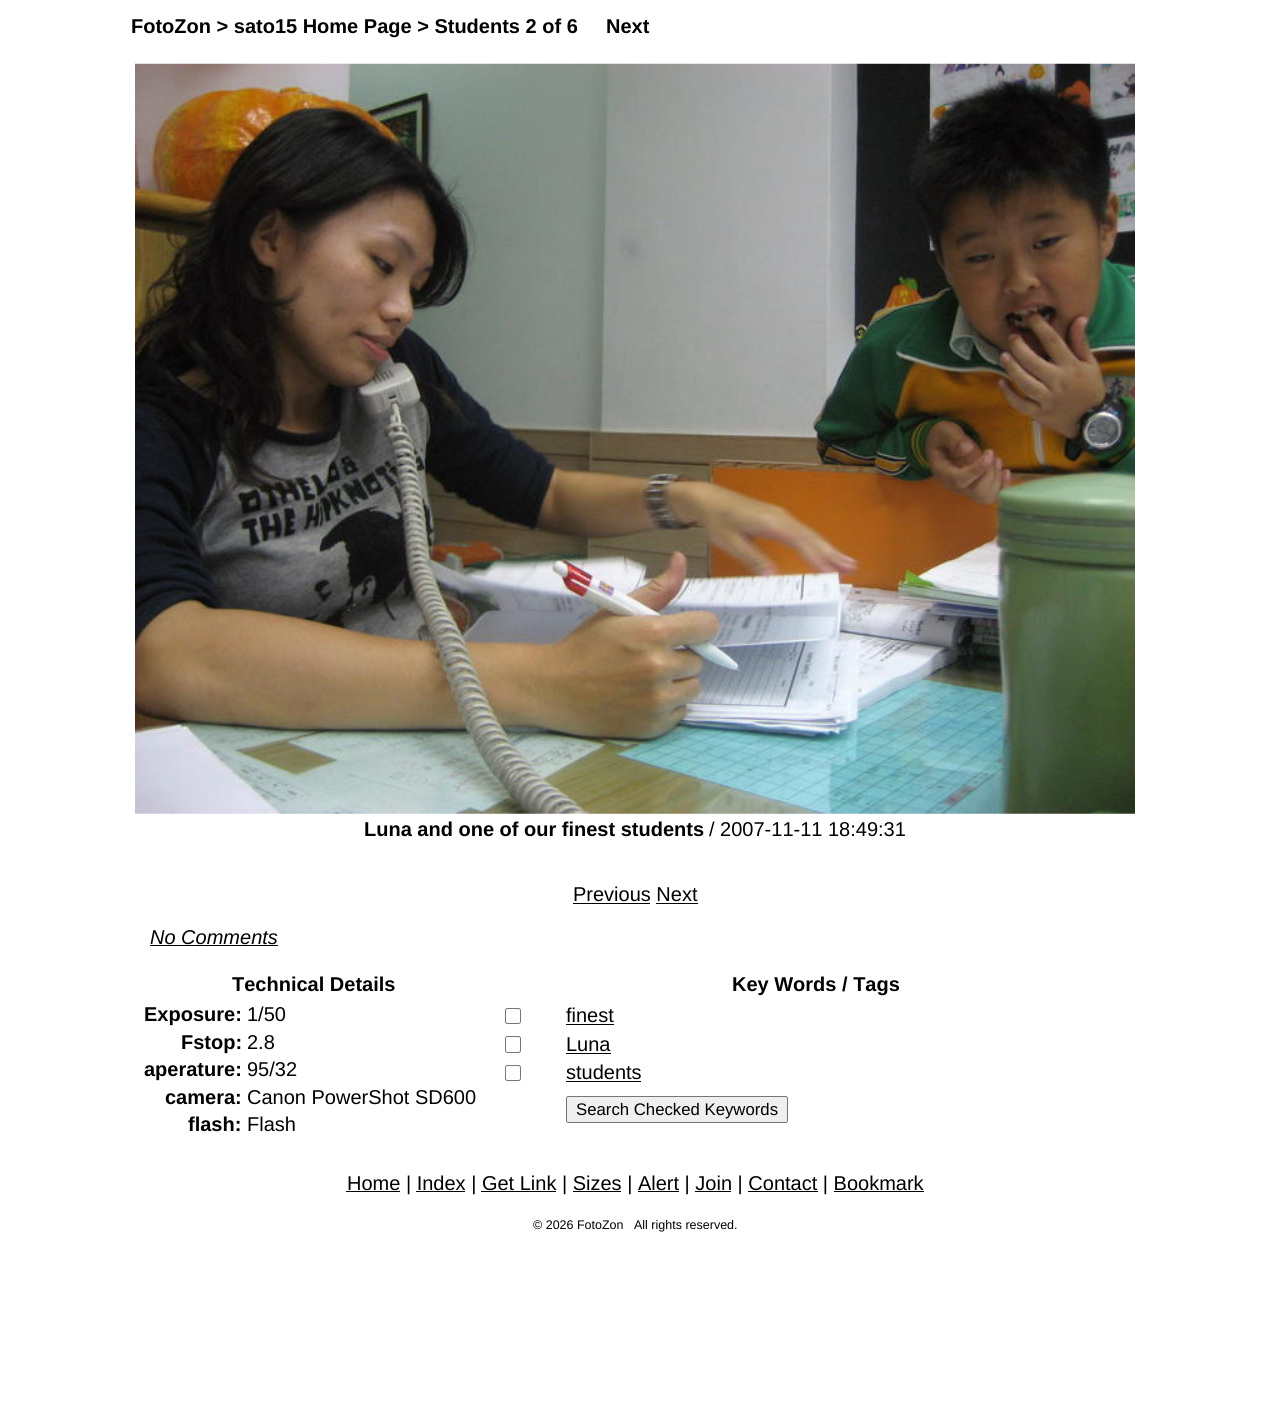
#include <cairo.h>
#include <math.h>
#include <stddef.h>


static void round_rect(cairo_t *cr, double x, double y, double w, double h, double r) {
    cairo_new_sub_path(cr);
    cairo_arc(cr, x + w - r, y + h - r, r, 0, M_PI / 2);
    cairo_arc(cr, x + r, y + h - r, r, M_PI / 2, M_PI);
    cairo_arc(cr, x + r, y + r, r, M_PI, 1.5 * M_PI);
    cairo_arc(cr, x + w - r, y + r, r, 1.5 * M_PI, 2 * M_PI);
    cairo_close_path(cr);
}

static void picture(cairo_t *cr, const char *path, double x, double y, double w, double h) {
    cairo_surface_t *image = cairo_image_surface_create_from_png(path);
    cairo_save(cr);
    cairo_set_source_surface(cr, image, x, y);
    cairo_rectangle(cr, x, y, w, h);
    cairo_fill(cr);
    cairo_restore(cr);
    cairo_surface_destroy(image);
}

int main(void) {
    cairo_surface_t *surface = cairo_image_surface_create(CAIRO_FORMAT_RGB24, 1269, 1417);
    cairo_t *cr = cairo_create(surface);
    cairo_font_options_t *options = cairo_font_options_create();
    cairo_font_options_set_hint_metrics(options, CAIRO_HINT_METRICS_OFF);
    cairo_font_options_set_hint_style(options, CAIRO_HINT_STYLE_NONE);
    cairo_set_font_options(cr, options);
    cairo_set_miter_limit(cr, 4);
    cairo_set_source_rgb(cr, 1, 1, 1);
    cairo_paint(cr);
    cairo_select_font_face(cr, "Liberation Sans", CAIRO_FONT_SLANT_NORMAL, CAIRO_FONT_WEIGHT_BOLD);
    cairo_set_font_size(cr, 20);
    cairo_set_source_rgb(cr, 0, 0, 0);
    cairo_move_to(cr, 131, 33);
    cairo_show_text(cr, "FotoZon > sato15 Home Page > Students 2 of 6");
    cairo_move_to(cr, 606, 33);
    cairo_show_text(cr, "Next");
    picture(cr, "img1.png", 135, 63, 1000, 751);
    cairo_move_to(cr, 364, 836);
    cairo_show_text(cr, "Luna and one of our finest students");
    cairo_select_font_face(cr, "Liberation Sans", CAIRO_FONT_SLANT_NORMAL, CAIRO_FONT_WEIGHT_NORMAL);
    cairo_move_to(cr, 709, 836);
    cairo_show_text(cr, "/ 2007-11-11 18:49:31");
    cairo_move_to(cr, 573, 901);
    cairo_show_text(cr, "Previous Next");
    cairo_rectangle(cr, 573, 903, 77, 1);
    cairo_fill(cr);
    cairo_rectangle(cr, 656, 903, 42, 1);
    cairo_fill(cr);
    cairo_select_font_face(cr, "Liberation Sans", CAIRO_FONT_SLANT_ITALIC, CAIRO_FONT_WEIGHT_NORMAL);
    cairo_move_to(cr, 150, 944);
    cairo_show_text(cr, "No Comments");
    cairo_rectangle(cr, 150, 945, 128, 1);
    cairo_fill(cr);
    cairo_select_font_face(cr, "Liberation Sans", CAIRO_FONT_SLANT_NORMAL, CAIRO_FONT_WEIGHT_BOLD);
    cairo_move_to(cr, 232, 991);
    cairo_show_text(cr, "Technical Details");
    cairo_move_to(cr, 144, 1021);
    cairo_show_text(cr, "Exposure:");
    cairo_select_font_face(cr, "Liberation Sans", CAIRO_FONT_SLANT_NORMAL, CAIRO_FONT_WEIGHT_NORMAL);
    cairo_move_to(cr, 247, 1021);
    cairo_show_text(cr, "1/50");
    cairo_select_font_face(cr, "Liberation Sans", CAIRO_FONT_SLANT_NORMAL, CAIRO_FONT_WEIGHT_BOLD);
    cairo_move_to(cr, 181, 1049);
    cairo_show_text(cr, "Fstop:");
    cairo_select_font_face(cr, "Liberation Sans", CAIRO_FONT_SLANT_NORMAL, CAIRO_FONT_WEIGHT_NORMAL);
    cairo_move_to(cr, 247, 1049);
    cairo_show_text(cr, "2.8");
    cairo_select_font_face(cr, "Liberation Sans", CAIRO_FONT_SLANT_NORMAL, CAIRO_FONT_WEIGHT_BOLD);
    cairo_move_to(cr, 144, 1076);
    cairo_show_text(cr, "aperature:");
    cairo_select_font_face(cr, "Liberation Sans", CAIRO_FONT_SLANT_NORMAL, CAIRO_FONT_WEIGHT_NORMAL);
    cairo_move_to(cr, 247, 1076);
    cairo_show_text(cr, "95/32");
    cairo_select_font_face(cr, "Liberation Sans", CAIRO_FONT_SLANT_NORMAL, CAIRO_FONT_WEIGHT_BOLD);
    cairo_move_to(cr, 165, 1104);
    cairo_show_text(cr, "camera:");
    cairo_select_font_face(cr, "Liberation Sans", CAIRO_FONT_SLANT_NORMAL, CAIRO_FONT_WEIGHT_NORMAL);
    cairo_move_to(cr, 247, 1104);
    cairo_show_text(cr, "Canon PowerShot SD600");
    cairo_select_font_face(cr, "Liberation Sans", CAIRO_FONT_SLANT_NORMAL, CAIRO_FONT_WEIGHT_BOLD);
    cairo_move_to(cr, 188, 1131);
    cairo_show_text(cr, "flash:");
    cairo_select_font_face(cr, "Liberation Sans", CAIRO_FONT_SLANT_NORMAL, CAIRO_FONT_WEIGHT_NORMAL);
    cairo_move_to(cr, 247, 1131);
    cairo_show_text(cr, "Flash");
    cairo_select_font_face(cr, "Liberation Sans", CAIRO_FONT_SLANT_NORMAL, CAIRO_FONT_WEIGHT_BOLD);
    cairo_move_to(cr, 732, 991);
    cairo_show_text(cr, "Key Words / Tags");
    round_rect(cr, 505.5, 1008.5, 15, 15, 2);
    cairo_set_source_rgb(cr, 0.463, 0.463, 0.463);
    cairo_set_line_width(cr, 1);
    cairo_stroke(cr);
    cairo_select_font_face(cr, "Liberation Sans", CAIRO_FONT_SLANT_NORMAL, CAIRO_FONT_WEIGHT_NORMAL);
    cairo_set_source_rgb(cr, 0, 0, 0);
    cairo_move_to(cr, 566, 1022);
    cairo_show_text(cr, "finest");
    cairo_rectangle(cr, 566, 1024, 48, 1);
    cairo_fill(cr);
    round_rect(cr, 505.5, 1036.5, 15, 16, 2);
    cairo_set_source_rgb(cr, 0.463, 0.463, 0.463);
    cairo_stroke(cr);
    cairo_set_source_rgb(cr, 0, 0, 0);
    cairo_move_to(cr, 566, 1051);
    cairo_show_text(cr, "Luna");
    cairo_rectangle(cr, 566, 1053, 45, 1);
    cairo_fill(cr);
    round_rect(cr, 505.5, 1065.5, 15, 15, 2);
    cairo_set_source_rgb(cr, 0.463, 0.463, 0.463);
    cairo_stroke(cr);
    cairo_set_source_rgb(cr, 0, 0, 0);
    cairo_move_to(cr, 566, 1079);
    cairo_show_text(cr, "students");
    cairo_rectangle(cr, 566, 1081, 75, 1);
    cairo_fill(cr);
    cairo_set_source_rgb(cr, 0.937, 0.937, 0.937);
    round_rect(cr, 566.5, 1096.5, 221, 26, 2);
    cairo_fill_preserve(cr);
    cairo_set_source_rgb(cr, 0.463, 0.463, 0.463);
    cairo_stroke(cr);
    cairo_set_font_size(cr, 16.75);
    cairo_set_source_rgb(cr, 0, 0, 0);
    cairo_move_to(cr, 576, 1115);
    cairo_show_text(cr, "Search Checked Keywords");
    cairo_rectangle(cr, 346, 1191, 54, 1);
    cairo_fill(cr);
    cairo_set_font_size(cr, 20);
    cairo_move_to(cr, 347, 1190);
    cairo_show_text(cr, "Home | Index | Get Link | Sizes | Alert | Join | Contact | Bookmark");
    cairo_rectangle(cr, 416, 1191, 49, 1);
    cairo_fill(cr);
    cairo_rectangle(cr, 481, 1191, 75, 1);
    cairo_fill(cr);
    cairo_rectangle(cr, 573, 1191, 48, 1);
    cairo_fill(cr);
    cairo_rectangle(cr, 638, 1191, 41, 1);
    cairo_fill(cr);
    cairo_rectangle(cr, 695, 1191, 36, 1);
    cairo_fill(cr);
    cairo_rectangle(cr, 748, 1191, 70, 1);
    cairo_fill(cr);
    cairo_rectangle(cr, 834, 1191, 90, 1);
    cairo_fill(cr);
    cairo_set_font_size(cr, 12.5);
    cairo_move_to(cr, 533, 1229);
    cairo_show_text(cr, "© 2026 FotoZon");
    cairo_move_to(cr, 634, 1229);
    cairo_show_text(cr, "All rights reserved.");
    cairo_surface_write_to_png(surface, "page.png");
    cairo_font_options_destroy(options);
    cairo_destroy(cr);
    cairo_surface_destroy(surface);
    return 0;
}
